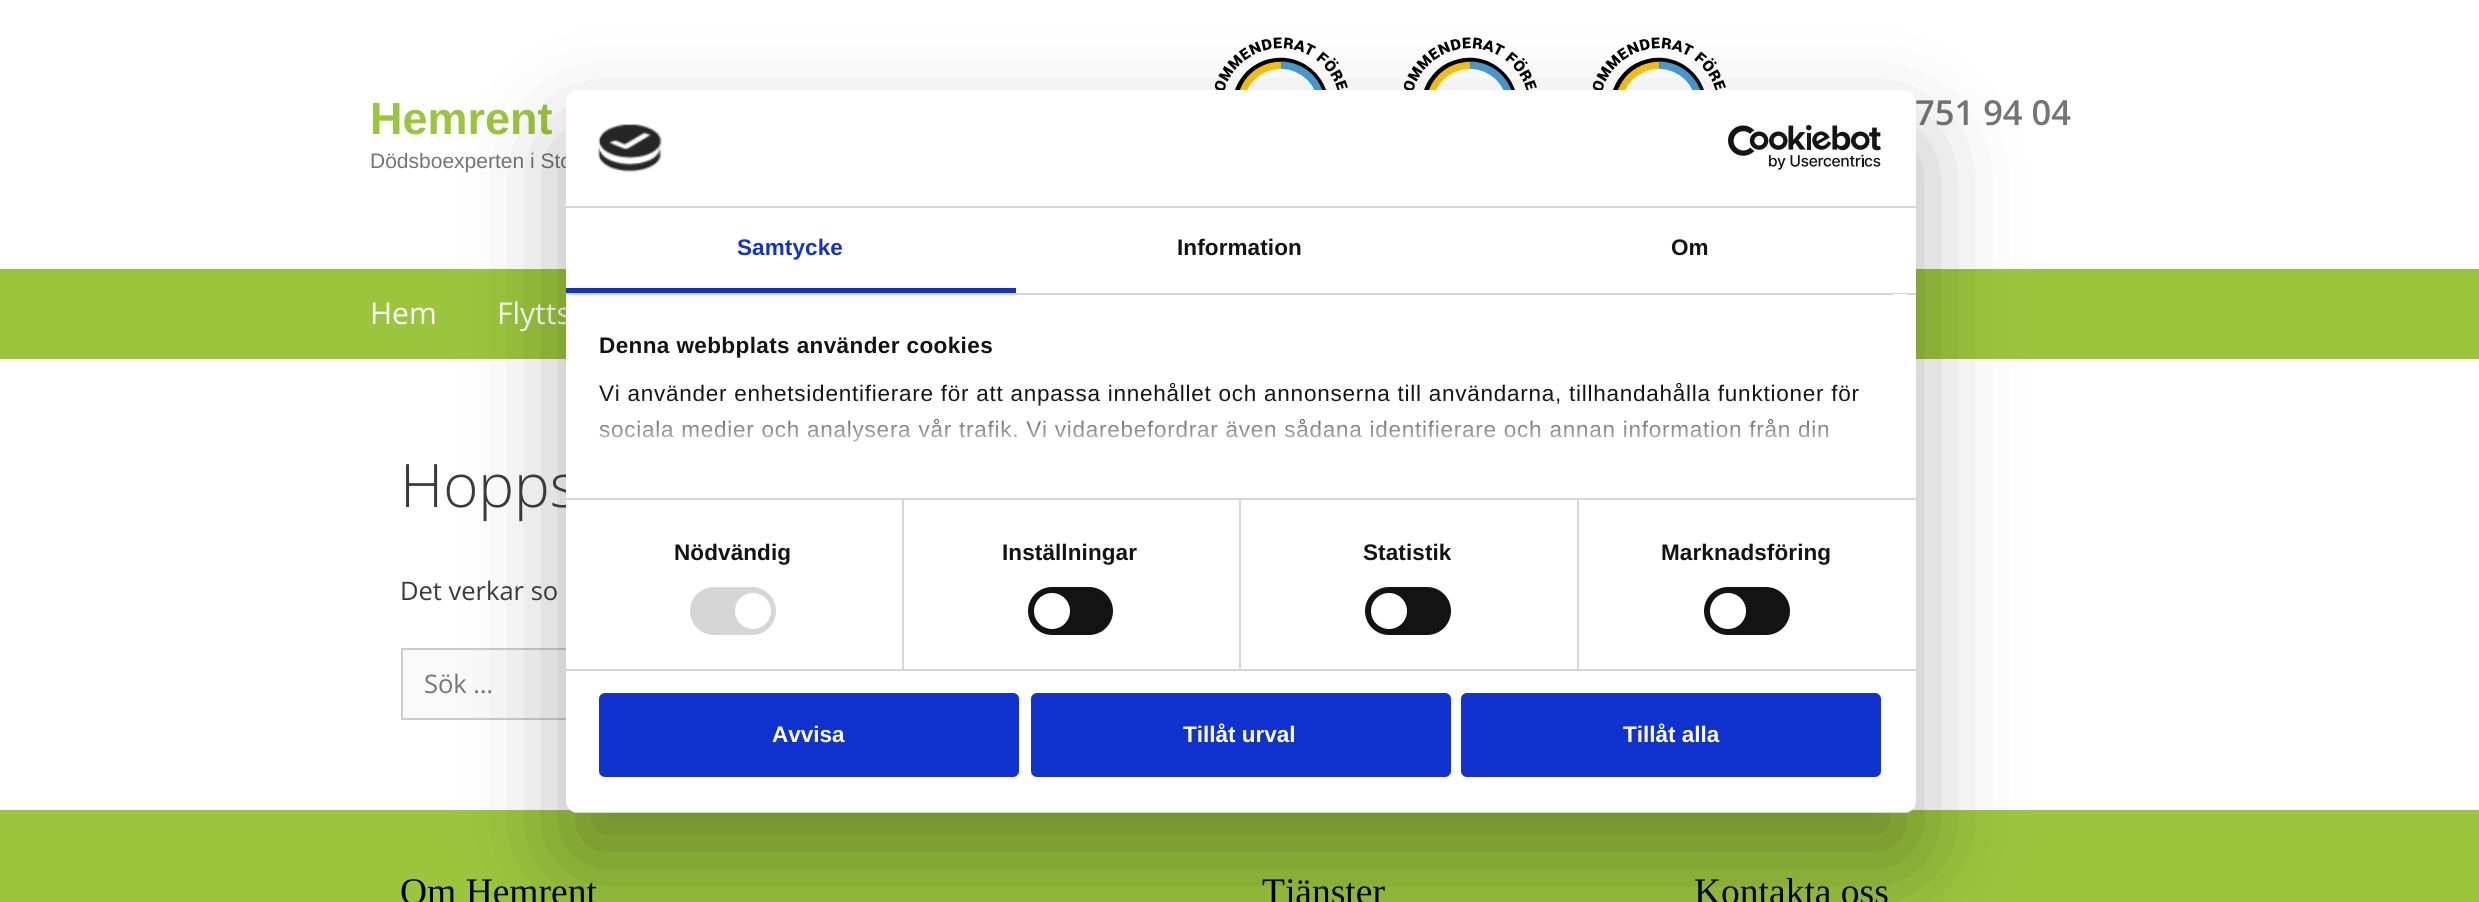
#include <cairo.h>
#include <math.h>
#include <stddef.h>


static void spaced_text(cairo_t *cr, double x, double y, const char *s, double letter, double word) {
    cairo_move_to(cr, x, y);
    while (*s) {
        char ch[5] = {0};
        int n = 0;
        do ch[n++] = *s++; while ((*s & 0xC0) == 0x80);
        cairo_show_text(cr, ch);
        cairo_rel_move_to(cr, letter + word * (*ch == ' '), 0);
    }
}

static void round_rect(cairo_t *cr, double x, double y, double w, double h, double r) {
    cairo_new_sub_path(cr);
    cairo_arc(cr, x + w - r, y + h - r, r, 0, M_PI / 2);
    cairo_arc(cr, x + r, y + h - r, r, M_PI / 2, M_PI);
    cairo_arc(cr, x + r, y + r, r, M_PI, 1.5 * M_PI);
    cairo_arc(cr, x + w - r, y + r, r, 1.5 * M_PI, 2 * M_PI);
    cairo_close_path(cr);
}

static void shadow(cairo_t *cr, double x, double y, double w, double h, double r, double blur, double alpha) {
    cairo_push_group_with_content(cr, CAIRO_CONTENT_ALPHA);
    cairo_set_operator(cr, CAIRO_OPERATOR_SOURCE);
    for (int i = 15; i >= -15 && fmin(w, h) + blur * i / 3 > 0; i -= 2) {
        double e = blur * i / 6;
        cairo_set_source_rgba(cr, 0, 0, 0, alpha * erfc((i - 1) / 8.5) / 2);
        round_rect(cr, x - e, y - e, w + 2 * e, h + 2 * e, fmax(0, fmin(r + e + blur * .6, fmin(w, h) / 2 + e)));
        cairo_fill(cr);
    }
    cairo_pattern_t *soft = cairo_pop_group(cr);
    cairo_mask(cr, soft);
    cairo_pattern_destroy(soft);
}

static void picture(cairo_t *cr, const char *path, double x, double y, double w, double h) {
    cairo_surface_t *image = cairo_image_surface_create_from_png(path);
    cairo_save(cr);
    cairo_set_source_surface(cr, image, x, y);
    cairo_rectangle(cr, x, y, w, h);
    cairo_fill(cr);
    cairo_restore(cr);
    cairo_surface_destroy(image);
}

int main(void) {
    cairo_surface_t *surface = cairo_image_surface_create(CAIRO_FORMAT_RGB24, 2479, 902);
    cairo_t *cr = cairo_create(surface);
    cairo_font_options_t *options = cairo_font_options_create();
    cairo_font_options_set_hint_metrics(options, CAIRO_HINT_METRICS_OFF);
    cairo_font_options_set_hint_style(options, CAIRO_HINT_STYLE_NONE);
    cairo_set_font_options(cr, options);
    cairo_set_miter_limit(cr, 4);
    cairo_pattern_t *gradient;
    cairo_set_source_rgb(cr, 1, 1, 1);
    cairo_paint(cr);
    cairo_select_font_face(cr, "Liberation Sans", CAIRO_FONT_SLANT_NORMAL, CAIRO_FONT_WEIGHT_BOLD);
    cairo_set_font_size(cr, 45);
    cairo_set_source_rgb(cr, 0.608, 0.773, 0.239);
    cairo_move_to(cr, 370, 134);
    cairo_show_text(cr, "Hemrent");
    cairo_select_font_face(cr, "Liberation Sans", CAIRO_FONT_SLANT_NORMAL, CAIRO_FONT_WEIGHT_NORMAL);
    cairo_set_font_size(cr, 21);
    cairo_set_source_rgb(cr, 0.459, 0.459, 0.459);
    cairo_move_to(cr, 370, 168);
    cairo_show_text(cr, "Dödsboexperten i Sto");
    picture(cr, "img1.png", 1211, 37, 140, 53);
    picture(cr, "img2.png", 1400, 37, 140, 53);
    picture(cr, "img3.png", 1589, 37, 140, 53);
    cairo_select_font_face(cr, "Open Sans SemiBold", CAIRO_FONT_SLANT_NORMAL, CAIRO_FONT_WEIGHT_NORMAL);
    cairo_set_font_size(cr, 34.5);
    cairo_move_to(cr, 1915, 125);
    cairo_show_text(cr, "751 94 04");
    cairo_set_source_rgb(cr, 0.608, 0.773, 0.239);
    cairo_rectangle(cr, 0, 269, 2479, 90);
    cairo_fill(cr);
    cairo_select_font_face(cr, "Open Sans", CAIRO_FONT_SLANT_NORMAL, CAIRO_FONT_WEIGHT_NORMAL);
    cairo_set_font_size(cr, 30);
    cairo_set_source_rgb(cr, 1, 1, 1);
    cairo_move_to(cr, 370, 324);
    cairo_show_text(cr, "Hem");
    cairo_move_to(cr, 497, 324);
    cairo_show_text(cr, "Flytts");
    cairo_set_source_rgb(cr, 0.98, 0.98, 0.98);
    cairo_rectangle(cr, 403, 650, 163, 68);
    cairo_fill(cr);
    cairo_rectangle(cr, 402, 649, 376, 70);
    cairo_set_source_rgb(cr, 0.8, 0.8, 0.8);
    cairo_stroke(cr);
    cairo_set_source_rgb(cr, 0.608, 0.773, 0.239);
    cairo_rectangle(cr, 0, 810, 2479, 92);
    cairo_fill(cr);
    cairo_set_source_rgb(cr, 0, 0, 0);
    shadow(cr, 566, 138, 1350, 723, 12, 51, 0.3);
    cairo_select_font_face(cr, "Open Sans Light", CAIRO_FONT_SLANT_NORMAL, CAIRO_FONT_WEIGHT_NORMAL);
    cairo_set_font_size(cr, 60);
    cairo_set_source_rgb(cr, 0.227, 0.227, 0.227);
    cairo_move_to(cr, 400, 507);
    cairo_show_text(cr, "Hopps");
    cairo_set_source_rgb(cr, 1, 1, 1);
    round_rect(cr, 566, 90, 1350, 723, 12);
    cairo_fill(cr);
    cairo_set_source_rgb(cr, 0.839, 0.839, 0.839);
    cairo_rectangle(cr, 566, 206, 1350, 2);
    cairo_fill(cr);
    picture(cr, "img4.png", 598, 124, 64, 49);
    picture(cr, "img5.png", 1728, 125, 153, 45);
    cairo_rectangle(cr, 566, 293, 1350, 2);
    cairo_fill(cr);
    cairo_set_source_rgb(cr, 0.063, 0.196, 0.812);
    cairo_rectangle(cr, 566, 288, 450, 5);
    cairo_fill(cr);
    cairo_select_font_face(cr, "Liberation Sans", CAIRO_FONT_SLANT_NORMAL, CAIRO_FONT_WEIGHT_BOLD);
    cairo_set_font_size(cr, 22.5);
    spaced_text(cr, 737, 255, "Samtycke", 0.1, 0);
    cairo_set_source_rgb(cr, 0.078, 0.078, 0.078);
    spaced_text(cr, 1177, 255, "Information", 0.1, 0);
    spaced_text(cr, 1671, 255, "Om", 0.1, 0);
    cairo_set_source_rgb(cr, 0.839, 0.839, 0.839);
    cairo_rectangle(cr, 566, 498, 1350, 2);
    cairo_fill(cr);
    cairo_set_source_rgb(cr, 1, 1, 1);
    cairo_rectangle(cr, 1893, 294, 14, 1);
    cairo_fill(cr);
    cairo_set_source_rgb(cr, 0.078, 0.078, 0.078);
    spaced_text(cr, 599, 353, "Denna webbplats använder cookies", 0.4, 0);
    cairo_select_font_face(cr, "Liberation Sans", CAIRO_FONT_SLANT_NORMAL, CAIRO_FONT_WEIGHT_NORMAL);
    spaced_text(cr, 599, 401, "Vi använder enhetsidentifierare för att anpassa innehållet och annonserna till användarna, tillhandahålla funktioner för", 0.75, 0);
    spaced_text(cr, 599, 437, "sociala medier och analysera vår trafik. Vi vidarebefordrar även sådana identifierare och annan information från din", 0.75, 0);
    gradient = cairo_pattern_create_linear(1225, 498, 1225, 396);
    cairo_pattern_add_color_stop_rgba(gradient, 0, 1, 1, 1, 1);
    cairo_pattern_add_color_stop_rgba(gradient, 0.5, 1, 1, 1, 0.8);
    cairo_pattern_add_color_stop_rgba(gradient, 1, 1, 1, 1, 0);
    cairo_set_source(cr, gradient);
    cairo_pattern_destroy(gradient);
    cairo_rectangle(cr, 599, 397, 1256, 45);
    cairo_fill(cr);
    cairo_set_source_rgb(cr, 0.839, 0.839, 0.839);
    cairo_rectangle(cr, 566, 669, 1350, 2);
    cairo_fill(cr);
    cairo_rectangle(cr, 902, 500, 2, 169);
    cairo_fill(cr);
    cairo_select_font_face(cr, "Liberation Sans", CAIRO_FONT_SLANT_NORMAL, CAIRO_FONT_WEIGHT_BOLD);
    cairo_set_source_rgb(cr, 0.078, 0.078, 0.078);
    spaced_text(cr, 674, 560, "Nödvändig", 0.1, 0);
    cairo_set_source_rgb(cr, 0.839, 0.839, 0.839);
    round_rect(cr, 690, 587, 86, 48, 24);
    cairo_fill(cr);
    cairo_set_source_rgb(cr, 1, 1, 1);
    cairo_arc(cr, 753, 611, 18, 0, 2 * M_PI);
    cairo_fill(cr);
    cairo_set_source_rgb(cr, 0.839, 0.839, 0.839);
    cairo_rectangle(cr, 1239, 500, 2, 169);
    cairo_fill(cr);
    cairo_set_source_rgb(cr, 0.078, 0.078, 0.078);
    spaced_text(cr, 1002, 560, "Inställningar", 0.1, 0);
    round_rect(cr, 1028, 587, 85, 48, 24);
    cairo_fill(cr);
    cairo_set_source_rgb(cr, 1, 1, 1);
    cairo_arc(cr, 1052, 611, 18, 0, 2 * M_PI);
    cairo_fill(cr);
    cairo_set_source_rgb(cr, 0.839, 0.839, 0.839);
    cairo_rectangle(cr, 1577, 500, 2, 169);
    cairo_fill(cr);
    cairo_set_source_rgb(cr, 0.078, 0.078, 0.078);
    spaced_text(cr, 1363, 560, "Statistik", 0.1, 0);
    round_rect(cr, 1365, 587, 86, 48, 24);
    cairo_fill(cr);
    cairo_set_source_rgb(cr, 1, 1, 1);
    cairo_arc(cr, 1389, 611, 18, 0, 2 * M_PI);
    cairo_fill(cr);
    cairo_set_source_rgb(cr, 0.078, 0.078, 0.078);
    spaced_text(cr, 1661, 560, "Marknadsföring", 0.1, 0);
    round_rect(cr, 1704, 587, 86, 48, 24);
    cairo_fill(cr);
    cairo_set_source_rgb(cr, 1, 1, 1);
    cairo_arc(cr, 1728, 611, 18, 0, 2 * M_PI);
    cairo_fill(cr);
    cairo_save(cr);
    round_rect(cr, 566, 90, 1350, 723, 12);
    cairo_clip(cr);
    cairo_set_source_rgb(cr, 0.839, 0.839, 0.839);
    cairo_rectangle(cr, 566, 812, 1350, 1);
    cairo_fill(cr);
    cairo_restore(cr);
    cairo_set_source_rgb(cr, 0.063, 0.196, 0.812);
    round_rect(cr, 600.5, 694.5, 417, 81, 4.5);
    cairo_fill_preserve(cr);
    cairo_set_line_width(cr, 3);
    cairo_stroke(cr);
    cairo_set_source_rgb(cr, 1, 1, 1);
    cairo_move_to(cr, 772, 742);
    cairo_show_text(cr, "Avvisa");
    cairo_set_source_rgb(cr, 0.063, 0.196, 0.812);
    round_rect(cr, 1032.5, 694.5, 417, 81, 4.5);
    cairo_fill_preserve(cr);
    cairo_stroke(cr);
    cairo_set_source_rgb(cr, 1, 1, 1);
    cairo_move_to(cr, 1183, 742);
    cairo_show_text(cr, "Tillåt urval");
    cairo_set_source_rgb(cr, 0.063, 0.196, 0.812);
    round_rect(cr, 1462.5, 694.5, 417, 81, 4.5);
    cairo_fill_preserve(cr);
    cairo_stroke(cr);
    cairo_set_source_rgb(cr, 1, 1, 1);
    cairo_move_to(cr, 1623, 742);
    cairo_show_text(cr, "Tillåt alla");
    cairo_select_font_face(cr, "Open Sans", CAIRO_FONT_SLANT_NORMAL, CAIRO_FONT_WEIGHT_NORMAL);
    cairo_set_font_size(cr, 25.5);
    cairo_set_source_rgb(cr, 0.227, 0.227, 0.227);
    cairo_move_to(cr, 400, 600);
    cairo_show_text(cr, "Det verkar so");
    cairo_set_source_rgb(cr, 0.459, 0.459, 0.459);
    cairo_move_to(cr, 424, 693);
    cairo_show_text(cr, "Sök …");
    cairo_select_font_face(cr, "Liberation Serif", CAIRO_FONT_SLANT_NORMAL, CAIRO_FONT_WEIGHT_NORMAL);
    cairo_set_font_size(cr, 37.5);
    cairo_set_source_rgb(cr, 0, 0, 0);
    cairo_move_to(cr, 400, 904);
    cairo_show_text(cr, "Om Hemrent");
    cairo_move_to(cr, 1262, 904);
    cairo_show_text(cr, "Tjänster");
    cairo_move_to(cr, 1694, 904);
    cairo_show_text(cr, "Kontakta oss");
    cairo_surface_write_to_png(surface, "page.png");
    cairo_font_options_destroy(options);
    cairo_destroy(cr);
    cairo_surface_destroy(surface);
    return 0;
}
